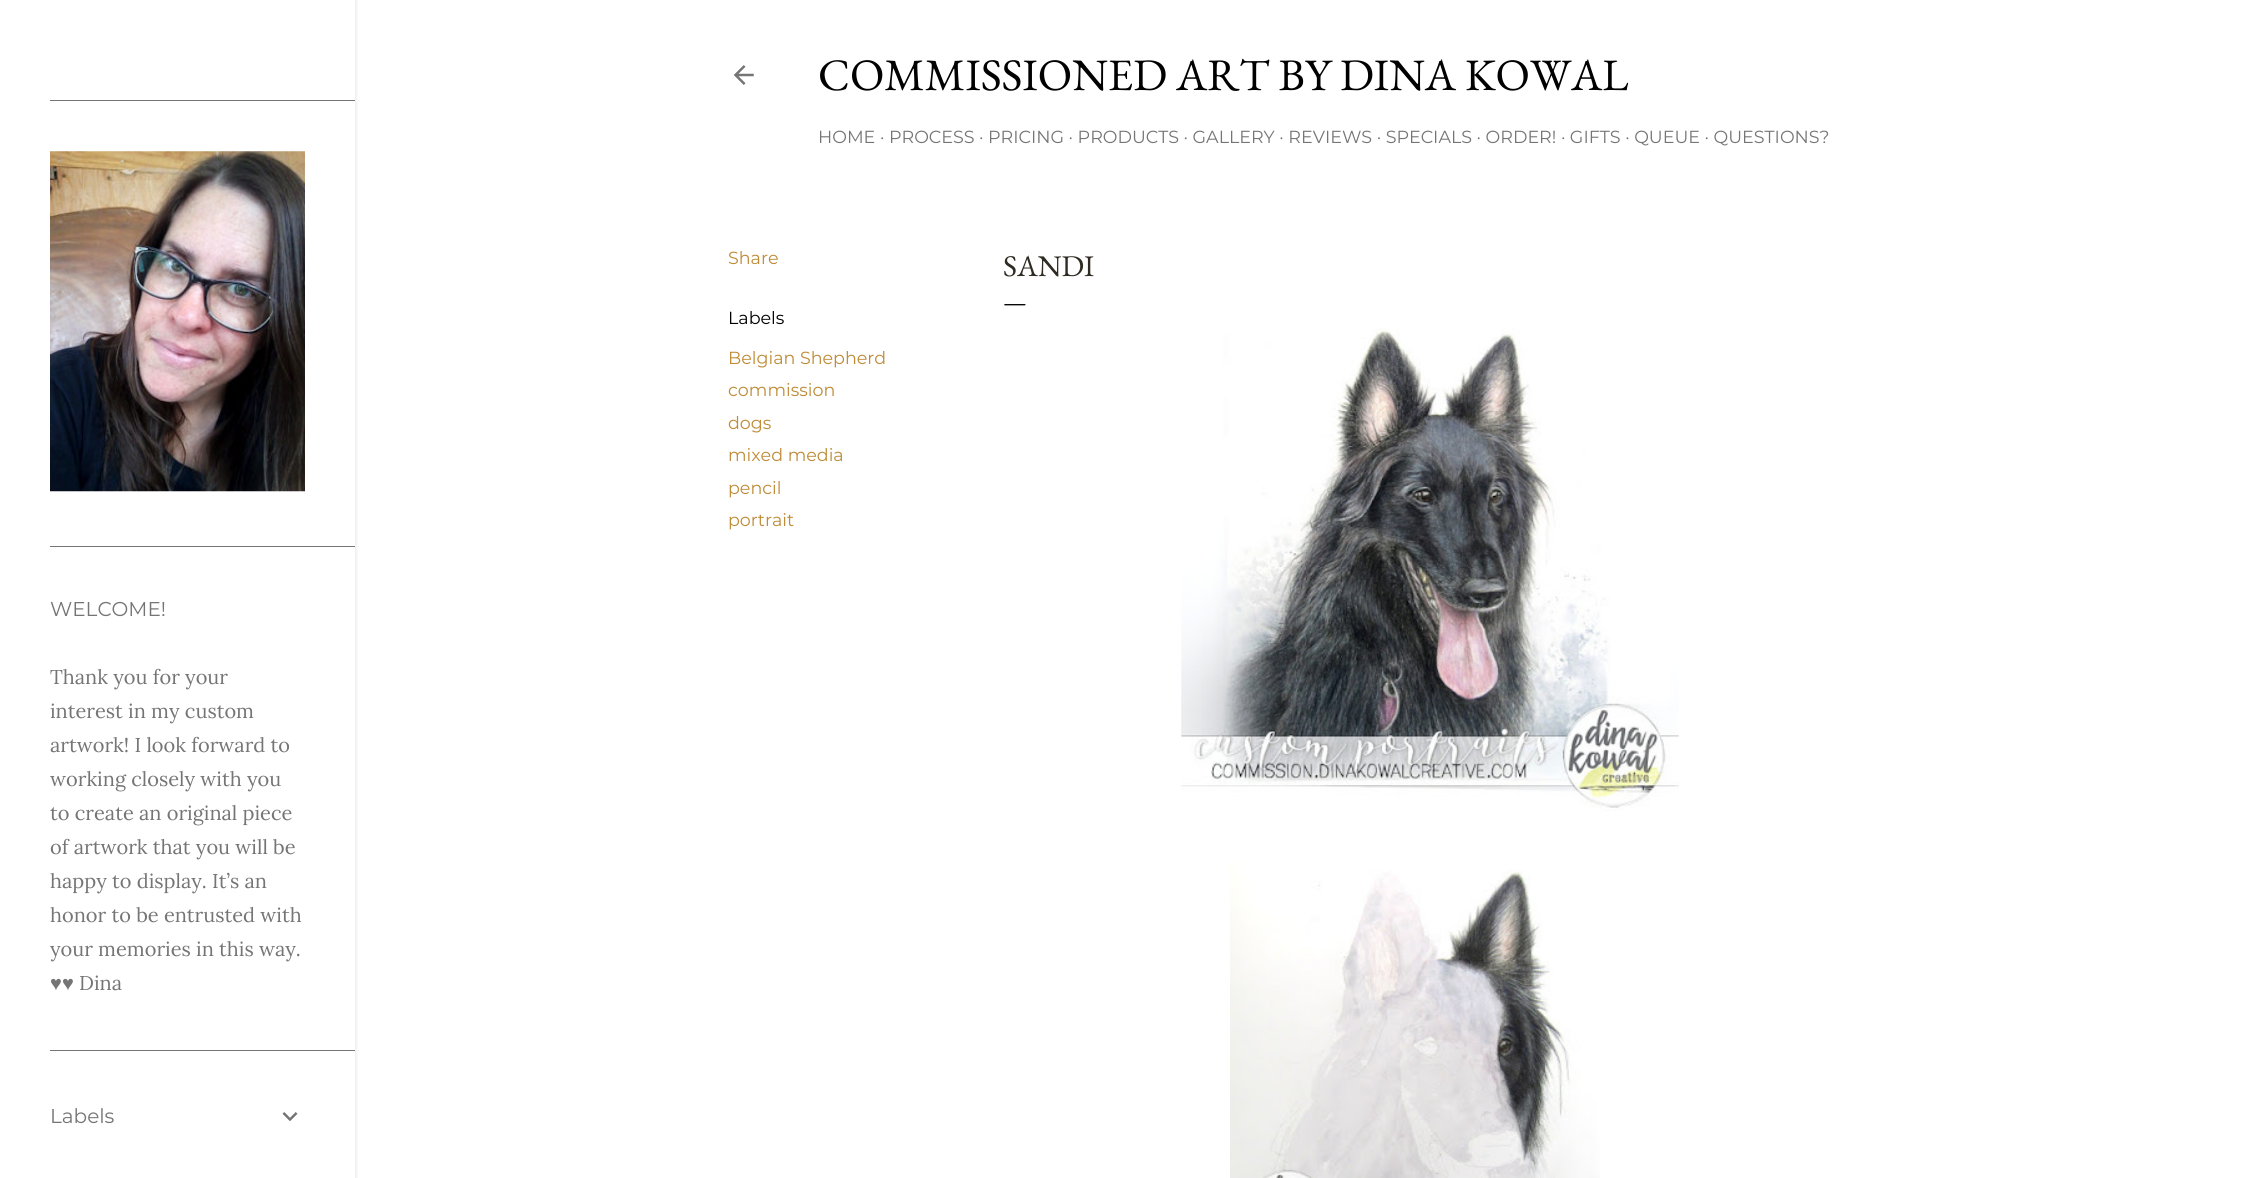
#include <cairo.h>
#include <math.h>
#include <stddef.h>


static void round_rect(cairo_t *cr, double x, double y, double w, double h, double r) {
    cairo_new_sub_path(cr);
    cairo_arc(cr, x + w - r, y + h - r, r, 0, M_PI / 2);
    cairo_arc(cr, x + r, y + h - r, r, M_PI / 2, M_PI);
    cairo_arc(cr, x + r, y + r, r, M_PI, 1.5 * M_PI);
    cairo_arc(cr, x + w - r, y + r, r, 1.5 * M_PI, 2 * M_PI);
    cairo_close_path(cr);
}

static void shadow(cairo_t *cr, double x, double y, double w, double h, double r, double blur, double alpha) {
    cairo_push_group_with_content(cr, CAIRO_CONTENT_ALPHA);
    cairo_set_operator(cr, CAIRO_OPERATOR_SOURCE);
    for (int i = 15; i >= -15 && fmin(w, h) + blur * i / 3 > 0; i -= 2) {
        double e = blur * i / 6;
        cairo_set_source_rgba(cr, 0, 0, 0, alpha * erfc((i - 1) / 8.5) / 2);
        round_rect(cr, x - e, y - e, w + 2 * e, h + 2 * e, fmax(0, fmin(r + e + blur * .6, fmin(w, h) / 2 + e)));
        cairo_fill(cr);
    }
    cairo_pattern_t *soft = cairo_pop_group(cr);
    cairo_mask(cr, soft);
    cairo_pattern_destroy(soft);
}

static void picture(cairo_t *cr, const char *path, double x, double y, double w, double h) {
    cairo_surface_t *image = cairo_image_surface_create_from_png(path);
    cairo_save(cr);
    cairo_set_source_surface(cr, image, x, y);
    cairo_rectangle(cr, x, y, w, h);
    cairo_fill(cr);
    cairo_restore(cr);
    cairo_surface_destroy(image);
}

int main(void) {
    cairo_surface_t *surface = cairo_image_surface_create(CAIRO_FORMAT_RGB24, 2253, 1178);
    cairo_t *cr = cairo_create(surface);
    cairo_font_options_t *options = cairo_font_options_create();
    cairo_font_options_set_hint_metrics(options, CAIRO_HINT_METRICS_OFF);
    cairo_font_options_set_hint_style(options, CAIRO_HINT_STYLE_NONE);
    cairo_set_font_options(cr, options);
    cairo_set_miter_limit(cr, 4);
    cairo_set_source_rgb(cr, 1, 1, 1);
    cairo_paint(cr);
    picture(cr, "img1.png", 734, 65, 20, 20);
    cairo_select_font_face(cr, "EB Garamond", CAIRO_FONT_SLANT_NORMAL, CAIRO_FONT_WEIGHT_NORMAL);
    cairo_set_font_size(cr, 45);
    cairo_set_source_rgb(cr, 0, 0, 0);
    cairo_move_to(cr, 818, 90);
    cairo_show_text(cr, "COMMISSIONED ART BY DINA KOWAL");
    cairo_select_font_face(cr, "Montserrat", CAIRO_FONT_SLANT_NORMAL, CAIRO_FONT_WEIGHT_NORMAL);
    cairo_set_font_size(cr, 17.5);
    cairo_set_source_rgb(cr, 0.459, 0.459, 0.459);
    cairo_move_to(cr, 818, 143);
    cairo_show_text(cr, "HOME · PROCESS · PRICING · PRODUCTS · GALLERY · REVIEWS · SPECIALS · ORDER! · GIFTS · QUEUE · QUESTIONS?");
    cairo_set_source_rgb(cr, 0.745, 0.545, 0.216);
    cairo_move_to(cr, 728, 264);
    cairo_show_text(cr, "Share");
    cairo_set_source_rgb(cr, 0, 0, 0);
    cairo_move_to(cr, 728, 324);
    cairo_show_text(cr, "Labels");
    cairo_set_source_rgb(cr, 0.745, 0.545, 0.216);
    cairo_move_to(cr, 728, 364);
    cairo_show_text(cr, "Belgian Shepherd");
    cairo_move_to(cr, 728, 396);
    cairo_show_text(cr, "commission");
    cairo_move_to(cr, 728, 429);
    cairo_show_text(cr, "dogs");
    cairo_move_to(cr, 728, 461);
    cairo_show_text(cr, "mixed media");
    cairo_move_to(cr, 728, 494);
    cairo_show_text(cr, "pencil");
    cairo_move_to(cr, 728, 526);
    cairo_show_text(cr, "portrait");
    cairo_select_font_face(cr, "EB Garamond", CAIRO_FONT_SLANT_NORMAL, CAIRO_FONT_WEIGHT_NORMAL);
    cairo_set_font_size(cr, 30);
    cairo_set_source_rgb(cr, 0.184, 0.169, 0.137);
    cairo_move_to(cr, 1003, 276);
    cairo_show_text(cr, "SANDI");
    cairo_set_font_size(cr, 25);
    cairo_set_source_rgb(cr, 0, 0, 0);
    cairo_move_to(cr, 1003, 310);
    cairo_show_text(cr, "—");
    picture(cr, "img2.png", 1181, 328, 498, 483);
    picture(cr, "img3.png", 1230, 860, 370, 318);
    cairo_save(cr);
    cairo_rectangle(cr, 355, 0, 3, 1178);
    cairo_clip(cr);
    cairo_set_source_rgb(cr, 0, 0, 0);
    shadow(cr, 1, 0, 355, 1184, 0, 2, 0.1);
    cairo_restore(cr);
    cairo_set_source_rgb(cr, 0.459, 0.459, 0.459);
    cairo_rectangle(cr, 50, 100, 305, 1);
    cairo_fill(cr);
    picture(cr, "img4.png", 50, 151, 255, 341);
    cairo_rectangle(cr, 50, 546, 305, 1);
    cairo_fill(cr);
    cairo_select_font_face(cr, "Montserrat", CAIRO_FONT_SLANT_NORMAL, CAIRO_FONT_WEIGHT_NORMAL);
    cairo_set_font_size(cr, 20);
    cairo_move_to(cr, 50, 616);
    cairo_show_text(cr, "WELCOME!");
    cairo_select_font_face(cr, "Lora", CAIRO_FONT_SLANT_NORMAL, CAIRO_FONT_WEIGHT_NORMAL);
    cairo_move_to(cr, 50, 684);
    cairo_show_text(cr, "Thank you for your");
    cairo_move_to(cr, 50, 718);
    cairo_show_text(cr, "interest in my custom");
    cairo_move_to(cr, 50, 752);
    cairo_show_text(cr, "artwork! I look forward to");
    cairo_move_to(cr, 50, 786);
    cairo_show_text(cr, "working closely with you");
    cairo_move_to(cr, 50, 820);
    cairo_show_text(cr, "to create an original piece");
    cairo_move_to(cr, 50, 854);
    cairo_show_text(cr, "of artwork that you will be");
    cairo_move_to(cr, 50, 888);
    cairo_show_text(cr, "happy to display. It’s an");
    cairo_move_to(cr, 50, 922);
    cairo_show_text(cr, "honor to be entrusted with");
    cairo_move_to(cr, 50, 956);
    cairo_show_text(cr, "your memories in this way.");
    cairo_select_font_face(cr, "Liberation Serif", CAIRO_FONT_SLANT_NORMAL, CAIRO_FONT_WEIGHT_NORMAL);
    cairo_move_to(cr, 50, 990);
    cairo_show_text(cr, "♥♥");
    cairo_select_font_face(cr, "Lora", CAIRO_FONT_SLANT_NORMAL, CAIRO_FONT_WEIGHT_NORMAL);
    cairo_move_to(cr, 79, 990);
    cairo_show_text(cr, "Dina");
    cairo_rectangle(cr, 50, 1050, 305, 1);
    cairo_fill(cr);
    cairo_select_font_face(cr, "Montserrat", CAIRO_FONT_SLANT_NORMAL, CAIRO_FONT_WEIGHT_NORMAL);
    cairo_move_to(cr, 50, 1123);
    cairo_show_text(cr, "Labels");
    picture(cr, "img5.png", 282, 1112, 16, 9);
    cairo_surface_write_to_png(surface, "page.png");
    cairo_font_options_destroy(options);
    cairo_destroy(cr);
    cairo_surface_destroy(surface);
    return 0;
}
